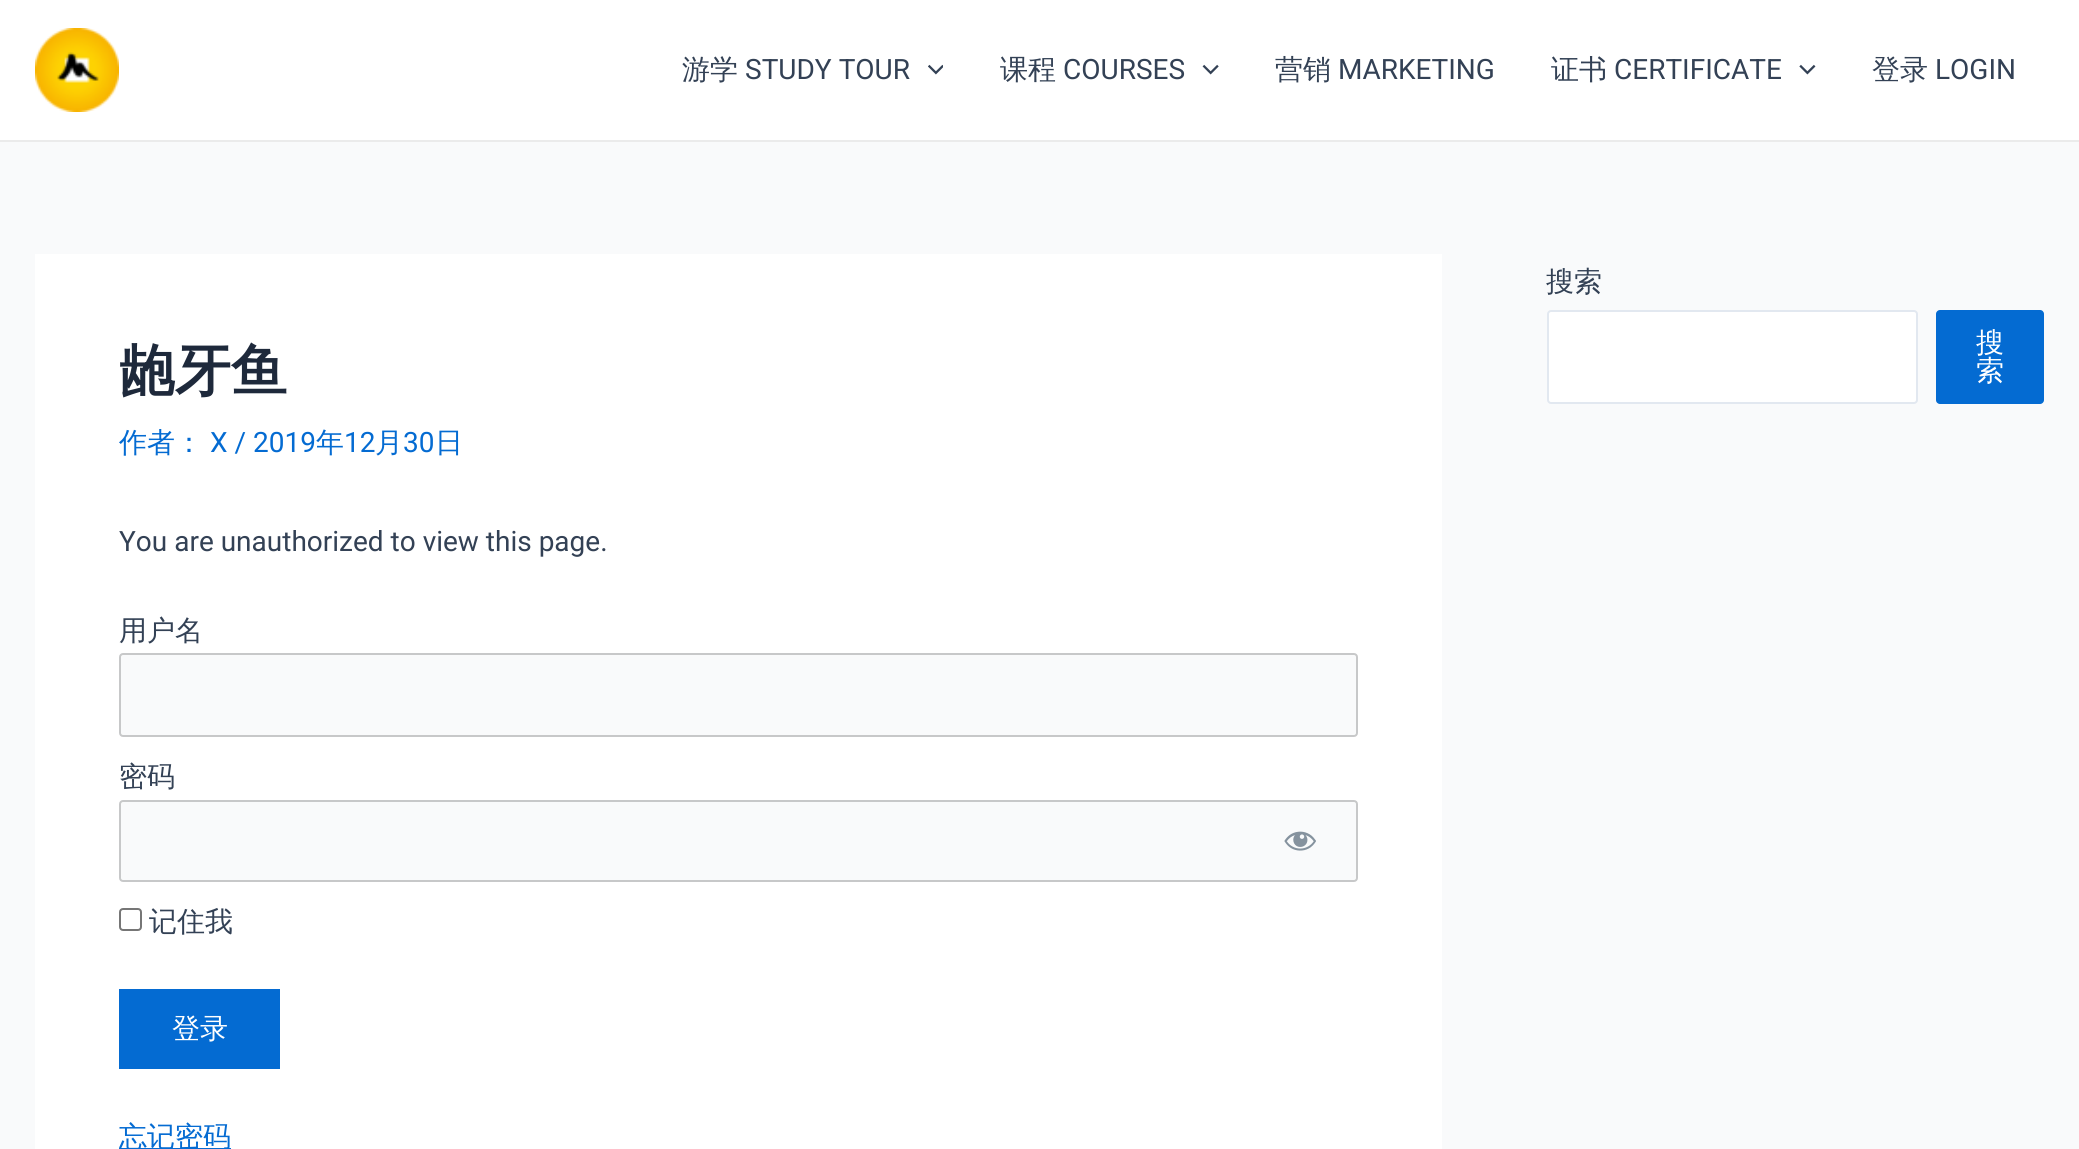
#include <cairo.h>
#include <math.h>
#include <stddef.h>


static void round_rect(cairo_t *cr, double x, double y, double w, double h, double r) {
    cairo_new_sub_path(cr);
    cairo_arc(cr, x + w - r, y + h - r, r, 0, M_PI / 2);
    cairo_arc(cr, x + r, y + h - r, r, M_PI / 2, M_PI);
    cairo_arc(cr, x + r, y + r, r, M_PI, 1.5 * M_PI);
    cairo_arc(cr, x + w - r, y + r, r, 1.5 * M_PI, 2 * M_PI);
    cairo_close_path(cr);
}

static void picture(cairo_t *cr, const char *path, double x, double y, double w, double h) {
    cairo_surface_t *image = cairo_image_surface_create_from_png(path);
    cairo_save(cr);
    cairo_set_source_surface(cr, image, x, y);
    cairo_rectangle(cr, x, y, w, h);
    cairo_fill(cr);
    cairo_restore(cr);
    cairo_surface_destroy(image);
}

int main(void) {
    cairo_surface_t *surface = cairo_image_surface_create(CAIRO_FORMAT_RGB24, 2079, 1149);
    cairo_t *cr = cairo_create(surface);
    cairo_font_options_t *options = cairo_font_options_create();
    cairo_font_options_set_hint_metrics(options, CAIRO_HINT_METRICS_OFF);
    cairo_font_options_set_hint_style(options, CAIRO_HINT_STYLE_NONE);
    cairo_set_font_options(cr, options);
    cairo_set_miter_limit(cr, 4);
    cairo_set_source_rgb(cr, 0.976, 0.98, 0.984);
    cairo_paint(cr);
    cairo_set_source_rgb(cr, 1, 1, 1);
    cairo_rectangle(cr, 0, 0, 2079, 140);
    cairo_fill(cr);
    cairo_set_source_rgb(cr, 0.918, 0.918, 0.918);
    cairo_rectangle(cr, 0, 140, 2079, 2);
    cairo_fill(cr);
    picture(cr, "img1.png", 35, 28, 84, 84);
    cairo_select_font_face(cr, "WenQuanYi Zen Hei Medium", CAIRO_FONT_SLANT_NORMAL, CAIRO_FONT_WEIGHT_NORMAL);
    cairo_set_font_size(cr, 28);
    cairo_set_source_rgb(cr, 0.2, 0.255, 0.333);
    cairo_move_to(cr, 682, 79);
    cairo_show_text(cr, "游学");
    cairo_select_font_face(cr, "Roboto", CAIRO_FONT_SLANT_NORMAL, CAIRO_FONT_WEIGHT_NORMAL);
    cairo_move_to(cr, 745, 79);
    cairo_show_text(cr, "STUDY TOUR");
    picture(cr, "img2.png", 928, 64, 15, 11);
    cairo_select_font_face(cr, "WenQuanYi Zen Hei Medium", CAIRO_FONT_SLANT_NORMAL, CAIRO_FONT_WEIGHT_NORMAL);
    cairo_move_to(cr, 1000, 79);
    cairo_show_text(cr, "课程");
    cairo_select_font_face(cr, "Roboto", CAIRO_FONT_SLANT_NORMAL, CAIRO_FONT_WEIGHT_NORMAL);
    cairo_move_to(cr, 1063, 79);
    cairo_show_text(cr, "COURSES");
    picture(cr, "img3.png", 1202, 64, 17, 11);
    cairo_select_font_face(cr, "WenQuanYi Zen Hei Medium", CAIRO_FONT_SLANT_NORMAL, CAIRO_FONT_WEIGHT_NORMAL);
    cairo_move_to(cr, 1275, 79);
    cairo_show_text(cr, "营销");
    cairo_select_font_face(cr, "Roboto", CAIRO_FONT_SLANT_NORMAL, CAIRO_FONT_WEIGHT_NORMAL);
    cairo_move_to(cr, 1338, 79);
    cairo_show_text(cr, "MARKETING");
    cairo_select_font_face(cr, "WenQuanYi Zen Hei Medium", CAIRO_FONT_SLANT_NORMAL, CAIRO_FONT_WEIGHT_NORMAL);
    cairo_move_to(cr, 1551, 79);
    cairo_show_text(cr, "证书");
    cairo_select_font_face(cr, "Roboto", CAIRO_FONT_SLANT_NORMAL, CAIRO_FONT_WEIGHT_NORMAL);
    cairo_move_to(cr, 1614, 79);
    cairo_show_text(cr, "CERTIFICATE");
    picture(cr, "img4.png", 1799, 64, 17, 11);
    cairo_select_font_face(cr, "WenQuanYi Zen Hei Medium", CAIRO_FONT_SLANT_NORMAL, CAIRO_FONT_WEIGHT_NORMAL);
    cairo_move_to(cr, 1872, 79);
    cairo_show_text(cr, "登录");
    cairo_select_font_face(cr, "Roboto", CAIRO_FONT_SLANT_NORMAL, CAIRO_FONT_WEIGHT_NORMAL);
    cairo_move_to(cr, 1935, 79);
    cairo_show_text(cr, "LOGIN");
    cairo_select_font_face(cr, "WenQuanYi Zen Hei Medium", CAIRO_FONT_SLANT_NORMAL, CAIRO_FONT_WEIGHT_NORMAL);
    cairo_move_to(cr, 1546, 291);
    cairo_show_text(cr, "搜索");
    cairo_set_source_rgb(cr, 1, 1, 1);
    round_rect(cr, 1548, 311, 369, 92, 3);
    cairo_fill_preserve(cr);
    cairo_set_source_rgb(cr, 0.886, 0.91, 0.941);
    cairo_stroke(cr);
    cairo_set_source_rgb(cr, 0.016, 0.42, 0.824);
    round_rect(cr, 1936, 310, 108, 94, 4);
    cairo_fill(cr);
    cairo_set_source_rgb(cr, 1, 1, 1);
    cairo_move_to(cr, 1976, 352);
    cairo_show_text(cr, "搜");
    cairo_move_to(cr, 1976, 380);
    cairo_show_text(cr, "索");
    cairo_rectangle(cr, 35, 254, 1407, 895);
    cairo_fill(cr);
    cairo_select_font_face(cr, "WenQuanYi Zen Hei", CAIRO_FONT_SLANT_NORMAL, CAIRO_FONT_WEIGHT_BOLD);
    cairo_set_font_size(cr, 56);
    cairo_set_source_rgb(cr, 0.118, 0.161, 0.231);
    cairo_move_to(cr, 119, 390);
    cairo_show_text(cr, "龅牙鱼");
    cairo_select_font_face(cr, "WenQuanYi Zen Hei Medium", CAIRO_FONT_SLANT_NORMAL, CAIRO_FONT_WEIGHT_NORMAL);
    cairo_set_font_size(cr, 28);
    cairo_set_source_rgb(cr, 0.016, 0.42, 0.824);
    cairo_move_to(cr, 119, 452);
    cairo_show_text(cr, "作者：");
    cairo_select_font_face(cr, "Roboto", CAIRO_FONT_SLANT_NORMAL, CAIRO_FONT_WEIGHT_NORMAL);
    cairo_move_to(cr, 210, 452);
    cairo_show_text(cr, "X / 2019");
    cairo_select_font_face(cr, "WenQuanYi Zen Hei Medium", CAIRO_FONT_SLANT_NORMAL, CAIRO_FONT_WEIGHT_NORMAL);
    cairo_move_to(cr, 316, 452);
    cairo_show_text(cr, "年");
    cairo_select_font_face(cr, "Roboto", CAIRO_FONT_SLANT_NORMAL, CAIRO_FONT_WEIGHT_NORMAL);
    cairo_move_to(cr, 344, 452);
    cairo_show_text(cr, "12");
    cairo_select_font_face(cr, "WenQuanYi Zen Hei Medium", CAIRO_FONT_SLANT_NORMAL, CAIRO_FONT_WEIGHT_NORMAL);
    cairo_move_to(cr, 375, 452);
    cairo_show_text(cr, "月");
    cairo_select_font_face(cr, "Roboto", CAIRO_FONT_SLANT_NORMAL, CAIRO_FONT_WEIGHT_NORMAL);
    cairo_move_to(cr, 403, 452);
    cairo_show_text(cr, "30");
    cairo_select_font_face(cr, "WenQuanYi Zen Hei Medium", CAIRO_FONT_SLANT_NORMAL, CAIRO_FONT_WEIGHT_NORMAL);
    cairo_move_to(cr, 435, 452);
    cairo_show_text(cr, "日");
    cairo_select_font_face(cr, "Roboto", CAIRO_FONT_SLANT_NORMAL, CAIRO_FONT_WEIGHT_NORMAL);
    cairo_set_source_rgb(cr, 0.2, 0.255, 0.333);
    cairo_move_to(cr, 119, 551);
    cairo_show_text(cr, "You are unauthorized to view this page.");
    cairo_select_font_face(cr, "WenQuanYi Zen Hei Medium", CAIRO_FONT_SLANT_NORMAL, CAIRO_FONT_WEIGHT_NORMAL);
    cairo_move_to(cr, 119, 640);
    cairo_show_text(cr, "用户名");
    cairo_set_source_rgb(cr, 0.976, 0.98, 0.984);
    round_rect(cr, 120, 654, 1237, 82, 3);
    cairo_fill_preserve(cr);
    cairo_set_source_rgb(cr, 0.78, 0.784, 0.788);
    cairo_stroke(cr);
    cairo_set_source_rgb(cr, 0.2, 0.255, 0.333);
    cairo_move_to(cr, 119, 786);
    cairo_show_text(cr, "密码");
    cairo_set_source_rgb(cr, 0.976, 0.98, 0.984);
    round_rect(cr, 120, 801, 1237, 80, 3);
    cairo_fill_preserve(cr);
    cairo_set_source_rgb(cr, 0.78, 0.784, 0.788);
    cairo_stroke(cr);
    picture(cr, "img5.png", 1284, 831, 32, 20);
    round_rect(cr, 120, 909, 21, 21, 3);
    cairo_set_source_rgb(cr, 0.463, 0.463, 0.463);
    cairo_stroke(cr);
    cairo_set_source_rgb(cr, 0.2, 0.255, 0.333);
    cairo_move_to(cr, 149, 931);
    cairo_show_text(cr, "记住我");
    cairo_set_source_rgb(cr, 0.016, 0.42, 0.824);
    cairo_rectangle(cr, 119, 989, 161, 80);
    cairo_fill(cr);
    cairo_set_source_rgb(cr, 1, 1, 1);
    cairo_move_to(cr, 172, 1038);
    cairo_show_text(cr, "登录");
    cairo_set_source_rgb(cr, 0.016, 0.42, 0.824);
    cairo_rectangle(cr, 119, 1148, 112, 1);
    cairo_fill(cr);
    cairo_move_to(cr, 119, 1146);
    cairo_show_text(cr, "忘记密码");
    cairo_surface_write_to_png(surface, "page.png");
    cairo_font_options_destroy(options);
    cairo_destroy(cr);
    cairo_surface_destroy(surface);
    return 0;
}
